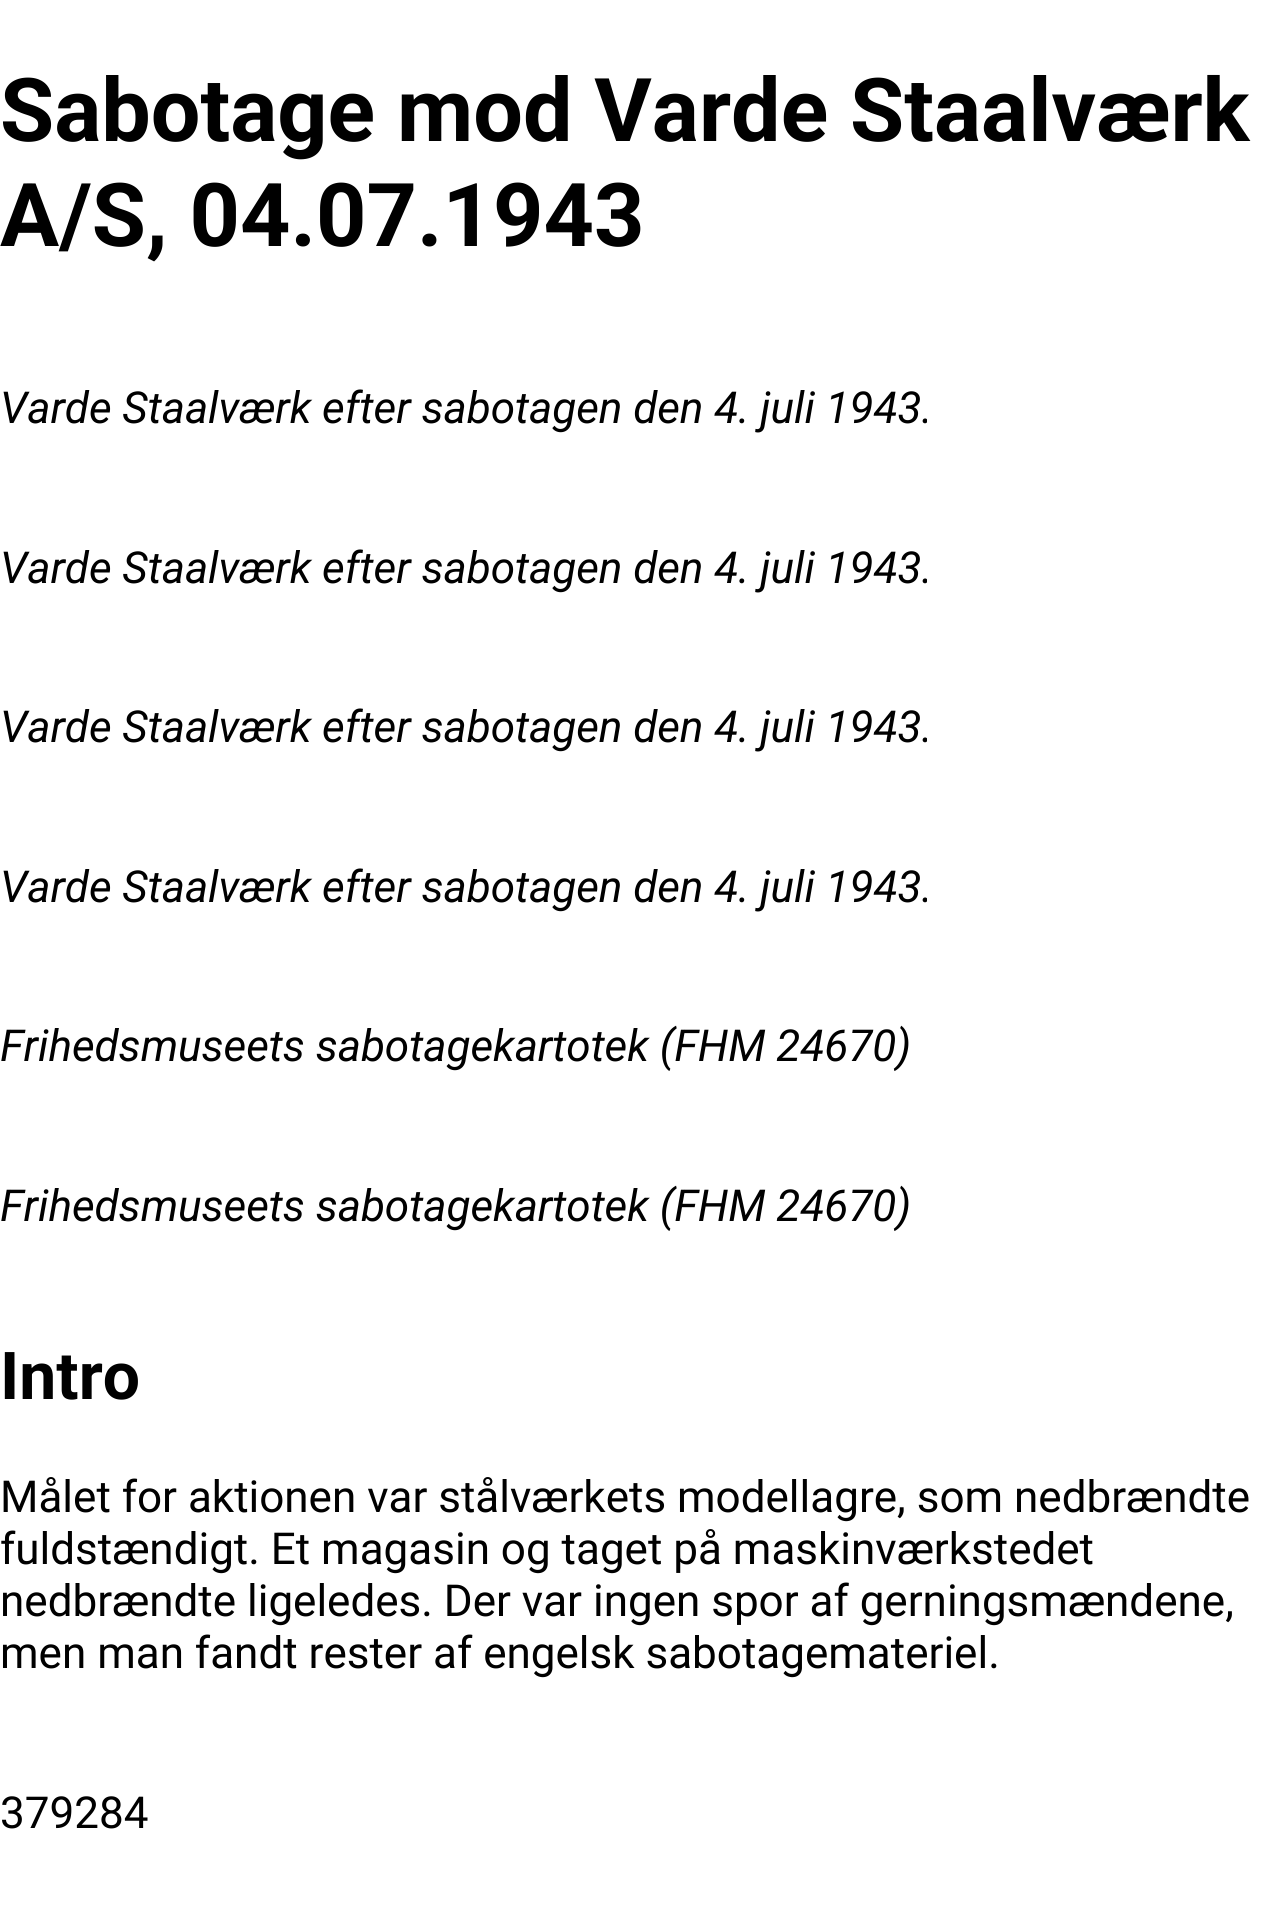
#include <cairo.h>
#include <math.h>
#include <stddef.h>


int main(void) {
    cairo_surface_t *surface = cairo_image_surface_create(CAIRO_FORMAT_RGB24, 1264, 1913);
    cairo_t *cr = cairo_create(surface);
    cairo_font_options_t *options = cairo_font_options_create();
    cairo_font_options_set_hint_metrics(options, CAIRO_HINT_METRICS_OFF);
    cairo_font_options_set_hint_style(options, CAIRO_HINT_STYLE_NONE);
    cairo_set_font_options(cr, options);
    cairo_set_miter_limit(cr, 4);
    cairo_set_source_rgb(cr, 1, 1, 1);
    cairo_paint(cr);
    cairo_select_font_face(cr, "Roboto", CAIRO_FONT_SLANT_NORMAL, CAIRO_FONT_WEIGHT_BOLD);
    cairo_set_font_size(cr, 88);
    cairo_set_source_rgb(cr, 0, 0, 0);
    cairo_move_to(cr, 0, 141);
    cairo_show_text(cr, "Sabotage mod Varde Staalværk");
    cairo_move_to(cr, 0, 246);
    cairo_show_text(cr, "A/S, 04.07.1943");
    cairo_select_font_face(cr, "Roboto", CAIRO_FONT_SLANT_ITALIC, CAIRO_FONT_WEIGHT_NORMAL);
    cairo_set_font_size(cr, 44);
    cairo_move_to(cr, 0, 423);
    cairo_show_text(cr, "Varde Staalværk efter sabotagen den 4. juli 1943.");
    cairo_move_to(cr, 0, 583);
    cairo_show_text(cr, "Varde Staalværk efter sabotagen den 4. juli 1943.");
    cairo_move_to(cr, 0, 742);
    cairo_show_text(cr, "Varde Staalværk efter sabotagen den 4. juli 1943.");
    cairo_move_to(cr, 0, 902);
    cairo_show_text(cr, "Varde Staalværk efter sabotagen den 4. juli 1943.");
    cairo_move_to(cr, 0, 1061);
    cairo_show_text(cr, "Frihedsmuseets sabotagekartotek (FHM 24670)");
    cairo_move_to(cr, 0, 1221);
    cairo_show_text(cr, "Frihedsmuseets sabotagekartotek (FHM 24670)");
    cairo_select_font_face(cr, "Roboto", CAIRO_FONT_SLANT_NORMAL, CAIRO_FONT_WEIGHT_BOLD);
    cairo_set_font_size(cr, 66);
    cairo_move_to(cr, 0, 1399);
    cairo_show_text(cr, "Intro");
    cairo_select_font_face(cr, "Roboto", CAIRO_FONT_SLANT_NORMAL, CAIRO_FONT_WEIGHT_NORMAL);
    cairo_set_font_size(cr, 44);
    cairo_move_to(cr, 0, 1512);
    cairo_show_text(cr, "Målet for aktionen var stålværkets modellagre, som nedbrændte");
    cairo_move_to(cr, 0, 1564);
    cairo_show_text(cr, "fuldstændigt. Et magasin og taget på maskinværkstedet");
    cairo_move_to(cr, 0, 1616);
    cairo_show_text(cr, "nedbrændte ligeledes. Der var ingen spor af gerningsmændene,");
    cairo_move_to(cr, 0, 1668);
    cairo_show_text(cr, "men man fandt rester af engelsk sabotagemateriel.");
    cairo_move_to(cr, 0, 1828);
    cairo_show_text(cr, "379284");
    cairo_surface_write_to_png(surface, "page.png");
    cairo_font_options_destroy(options);
    cairo_destroy(cr);
    cairo_surface_destroy(surface);
    return 0;
}
